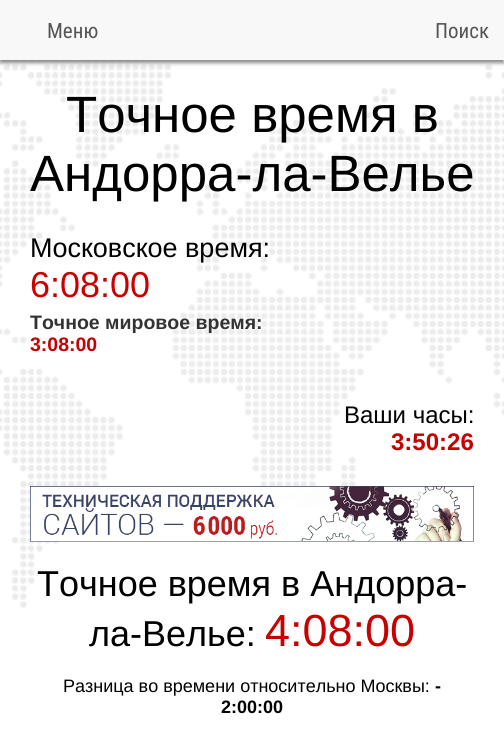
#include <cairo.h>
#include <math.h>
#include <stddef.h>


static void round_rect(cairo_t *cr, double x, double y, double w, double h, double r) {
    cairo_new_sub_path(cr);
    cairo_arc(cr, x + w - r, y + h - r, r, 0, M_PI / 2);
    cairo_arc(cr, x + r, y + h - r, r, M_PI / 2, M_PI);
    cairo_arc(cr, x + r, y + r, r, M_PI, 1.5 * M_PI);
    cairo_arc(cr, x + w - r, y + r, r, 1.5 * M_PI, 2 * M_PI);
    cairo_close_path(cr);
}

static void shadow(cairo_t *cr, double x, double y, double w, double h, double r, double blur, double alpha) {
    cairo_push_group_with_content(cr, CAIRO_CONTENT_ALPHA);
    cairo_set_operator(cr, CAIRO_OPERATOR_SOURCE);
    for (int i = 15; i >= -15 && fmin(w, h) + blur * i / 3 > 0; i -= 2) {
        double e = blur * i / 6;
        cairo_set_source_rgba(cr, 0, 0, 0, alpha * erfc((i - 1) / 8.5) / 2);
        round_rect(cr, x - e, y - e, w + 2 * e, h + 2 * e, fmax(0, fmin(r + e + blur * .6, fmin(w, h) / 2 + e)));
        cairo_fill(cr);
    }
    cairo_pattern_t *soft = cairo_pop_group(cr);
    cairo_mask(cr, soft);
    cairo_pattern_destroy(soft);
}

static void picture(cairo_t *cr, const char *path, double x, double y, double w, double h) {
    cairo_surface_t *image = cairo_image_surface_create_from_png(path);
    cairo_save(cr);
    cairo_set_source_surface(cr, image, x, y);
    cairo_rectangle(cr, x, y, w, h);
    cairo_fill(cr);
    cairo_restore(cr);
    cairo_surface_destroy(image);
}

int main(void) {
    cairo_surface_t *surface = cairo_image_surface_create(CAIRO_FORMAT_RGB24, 504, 729);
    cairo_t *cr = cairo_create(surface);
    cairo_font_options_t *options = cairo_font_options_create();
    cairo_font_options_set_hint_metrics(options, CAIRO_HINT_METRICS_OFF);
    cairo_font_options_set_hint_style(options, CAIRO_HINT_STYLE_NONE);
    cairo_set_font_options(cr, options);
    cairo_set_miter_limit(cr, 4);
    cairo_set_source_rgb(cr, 1, 1, 1);
    cairo_paint(cr);
    picture(cr, "img1.png", 0, 60, 504, 548);
    cairo_set_source_rgb(cr, 0.533, 0.533, 0.533);
    shadow(cr, 0, 3, 504, 60, 0, 2, 1);
    cairo_set_source_rgb(cr, 0.969, 0.969, 0.969);
    cairo_rectangle(cr, 0, 0, 504, 60);
    cairo_fill(cr);
    cairo_select_font_face(cr, "Roboto Condensed", CAIRO_FONT_SLANT_NORMAL, CAIRO_FONT_WEIGHT_NORMAL);
    cairo_set_font_size(cr, 21);
    cairo_set_source_rgb(cr, 0.333, 0.333, 0.333);
    cairo_move_to(cr, 47, 38);
    cairo_show_text(cr, "Меню");
    cairo_move_to(cr, 435, 38);
    cairo_show_text(cr, "Поиск");
    cairo_select_font_face(cr, "Liberation Sans", CAIRO_FONT_SLANT_NORMAL, CAIRO_FONT_WEIGHT_NORMAL);
    cairo_set_font_size(cr, 51);
    cairo_set_source_rgb(cr, 0, 0, 0);
    cairo_move_to(cr, 66, 132);
    cairo_show_text(cr, "Точное время в");
    cairo_move_to(cr, 30, 191);
    cairo_show_text(cr, "Андорра-ла-Велье");
    cairo_set_font_size(cr, 27);
    cairo_move_to(cr, 30, 257);
    cairo_show_text(cr, "Московское время:");
    cairo_set_font_size(cr, 36);
    cairo_set_source_rgb(cr, 0.784, 0, 0);
    cairo_move_to(cr, 30, 297);
    cairo_show_text(cr, "6:08:00");
    cairo_select_font_face(cr, "Liberation Sans", CAIRO_FONT_SLANT_NORMAL, CAIRO_FONT_WEIGHT_BOLD);
    cairo_set_font_size(cr, 19.5);
    cairo_set_source_rgb(cr, 0.2, 0.2, 0.2);
    cairo_move_to(cr, 30, 329);
    cairo_show_text(cr, "Точное мировое время:");
    cairo_set_source_rgb(cr, 0.784, 0, 0);
    cairo_move_to(cr, 30, 351);
    cairo_show_text(cr, "3:08:00");
    cairo_select_font_face(cr, "Liberation Sans", CAIRO_FONT_SLANT_NORMAL, CAIRO_FONT_WEIGHT_NORMAL);
    cairo_set_font_size(cr, 24);
    cairo_set_source_rgb(cr, 0, 0, 0);
    cairo_move_to(cr, 344, 423);
    cairo_show_text(cr, "Ваши часы:");
    cairo_select_font_face(cr, "Liberation Sans", CAIRO_FONT_SLANT_NORMAL, CAIRO_FONT_WEIGHT_BOLD);
    cairo_set_source_rgb(cr, 0.784, 0, 0);
    cairo_move_to(cr, 391, 450);
    cairo_show_text(cr, "3:50:26");
    picture(cr, "img2.png", 30, 486, 444, 56);
    cairo_select_font_face(cr, "Liberation Sans", CAIRO_FONT_SLANT_NORMAL, CAIRO_FONT_WEIGHT_NORMAL);
    cairo_set_font_size(cr, 36);
    cairo_set_source_rgb(cr, 0, 0, 0);
    cairo_move_to(cr, 37, 596);
    cairo_show_text(cr, "Точное время в Андорра-");
    cairo_move_to(cr, 89, 646);
    cairo_show_text(cr, "ла-Велье:");
    cairo_set_font_size(cr, 45);
    cairo_set_source_rgb(cr, 0.784, 0, 0);
    cairo_move_to(cr, 265, 646);
    cairo_show_text(cr, "4:08:00");
    cairo_set_font_size(cr, 18);
    cairo_set_source_rgb(cr, 0, 0, 0);
    cairo_move_to(cr, 63, 692);
    cairo_show_text(cr, "Разница во времени относительно Москвы:");
    cairo_select_font_face(cr, "Liberation Sans", CAIRO_FONT_SLANT_NORMAL, CAIRO_FONT_WEIGHT_BOLD);
    cairo_move_to(cr, 435, 692);
    cairo_show_text(cr, "-");
    cairo_move_to(cr, 221, 713);
    cairo_show_text(cr, "2:00:00");
    cairo_surface_write_to_png(surface, "page.png");
    cairo_font_options_destroy(options);
    cairo_destroy(cr);
    cairo_surface_destroy(surface);
    return 0;
}
